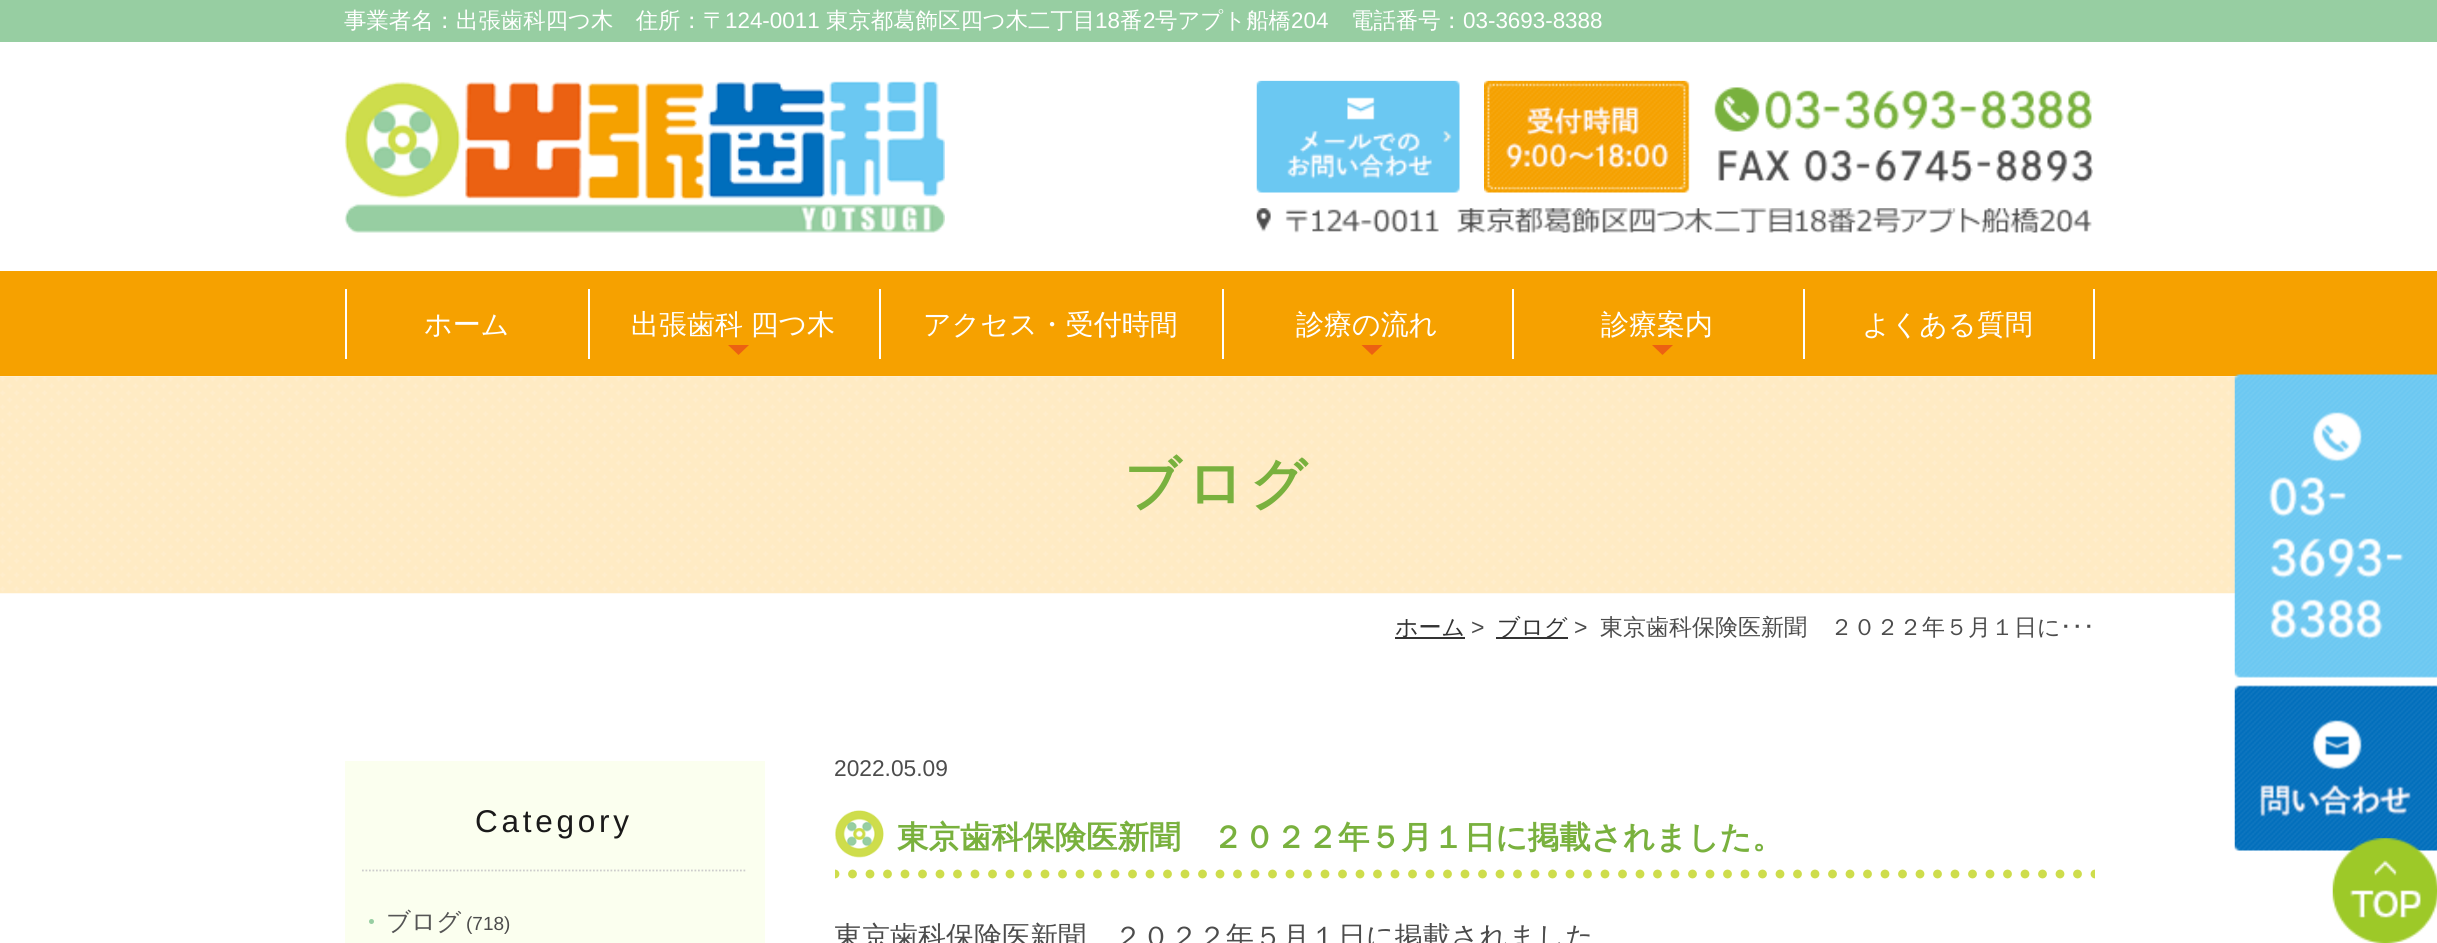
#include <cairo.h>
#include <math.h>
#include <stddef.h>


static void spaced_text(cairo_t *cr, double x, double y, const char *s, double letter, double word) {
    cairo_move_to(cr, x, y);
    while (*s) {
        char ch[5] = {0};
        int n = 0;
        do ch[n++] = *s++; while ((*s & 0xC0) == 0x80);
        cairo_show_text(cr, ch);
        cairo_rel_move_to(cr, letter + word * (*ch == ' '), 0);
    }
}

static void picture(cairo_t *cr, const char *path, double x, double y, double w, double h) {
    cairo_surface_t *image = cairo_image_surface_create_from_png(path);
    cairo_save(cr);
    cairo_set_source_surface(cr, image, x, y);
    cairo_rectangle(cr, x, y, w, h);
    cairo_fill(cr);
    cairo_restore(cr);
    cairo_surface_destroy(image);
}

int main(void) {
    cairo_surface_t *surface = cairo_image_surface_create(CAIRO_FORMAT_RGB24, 2437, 943);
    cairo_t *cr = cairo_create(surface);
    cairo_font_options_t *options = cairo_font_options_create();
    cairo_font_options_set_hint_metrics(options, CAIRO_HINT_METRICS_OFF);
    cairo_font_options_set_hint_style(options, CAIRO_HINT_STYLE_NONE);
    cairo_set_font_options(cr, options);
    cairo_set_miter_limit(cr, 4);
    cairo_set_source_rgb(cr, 1, 1, 1);
    cairo_paint(cr);
    cairo_set_source_rgb(cr, 0.592, 0.808, 0.635);
    cairo_rectangle(cr, 0, 0, 2437, 42);
    cairo_fill(cr);
    cairo_select_font_face(cr, "WenQuanYi Zen Hei Medium", CAIRO_FONT_SLANT_NORMAL, CAIRO_FONT_WEIGHT_NORMAL);
    cairo_set_font_size(cr, 22.4);
    cairo_set_source_rgb(cr, 1, 1, 1);
    cairo_move_to(cr, 344, 28);
    cairo_show_text(cr, "事業者名：出張歯科四つ木　住所：〒");
    cairo_select_font_face(cr, "Liberation Sans", CAIRO_FONT_SLANT_NORMAL, CAIRO_FONT_WEIGHT_NORMAL);
    cairo_move_to(cr, 725, 28);
    cairo_show_text(cr, "124-0011");
    cairo_select_font_face(cr, "WenQuanYi Zen Hei Medium", CAIRO_FONT_SLANT_NORMAL, CAIRO_FONT_WEIGHT_NORMAL);
    cairo_move_to(cr, 826, 28);
    cairo_show_text(cr, "東京都葛飾区四つ木二丁目");
    cairo_select_font_face(cr, "Liberation Sans", CAIRO_FONT_SLANT_NORMAL, CAIRO_FONT_WEIGHT_NORMAL);
    cairo_move_to(cr, 1095, 28);
    cairo_show_text(cr, "18");
    cairo_select_font_face(cr, "WenQuanYi Zen Hei Medium", CAIRO_FONT_SLANT_NORMAL, CAIRO_FONT_WEIGHT_NORMAL);
    cairo_move_to(cr, 1120, 28);
    cairo_show_text(cr, "番");
    cairo_select_font_face(cr, "Liberation Sans", CAIRO_FONT_SLANT_NORMAL, CAIRO_FONT_WEIGHT_NORMAL);
    cairo_move_to(cr, 1143, 28);
    cairo_show_text(cr, "2");
    cairo_select_font_face(cr, "WenQuanYi Zen Hei Medium", CAIRO_FONT_SLANT_NORMAL, CAIRO_FONT_WEIGHT_NORMAL);
    cairo_move_to(cr, 1155, 28);
    cairo_show_text(cr, "号アプト船橋");
    cairo_select_font_face(cr, "Liberation Sans", CAIRO_FONT_SLANT_NORMAL, CAIRO_FONT_WEIGHT_NORMAL);
    cairo_move_to(cr, 1291, 28);
    cairo_show_text(cr, "204");
    cairo_select_font_face(cr, "WenQuanYi Zen Hei Medium", CAIRO_FONT_SLANT_NORMAL, CAIRO_FONT_WEIGHT_NORMAL);
    cairo_move_to(cr, 1351, 28);
    cairo_show_text(cr, "電話番号：");
    cairo_select_font_face(cr, "Liberation Sans", CAIRO_FONT_SLANT_NORMAL, CAIRO_FONT_WEIGHT_NORMAL);
    cairo_move_to(cr, 1463, 28);
    cairo_show_text(cr, "03-3693-8388");
    picture(cr, "img1.png", 344, 81, 601, 152);
    picture(cr, "img2.png", 1256, 80, 204, 113);
    picture(cr, "img3.png", 1484, 80, 609, 113);
    picture(cr, "img4.png", 1256, 208, 836, 25);
    cairo_set_source_rgb(cr, 0.961, 0.631, 0);
    cairo_rectangle(cr, 0, 271, 2437, 105);
    cairo_fill(cr);
    cairo_set_source_rgb(cr, 1, 1, 1);
    cairo_rectangle(cr, 588, 289, 2, 70);
    cairo_fill(cr);
    cairo_rectangle(cr, 345, 289, 2, 70);
    cairo_fill(cr);
    cairo_select_font_face(cr, "WenQuanYi Zen Hei Medium", CAIRO_FONT_SLANT_NORMAL, CAIRO_FONT_WEIGHT_NORMAL);
    cairo_set_font_size(cr, 28);
    cairo_move_to(cr, 424, 334);
    cairo_show_text(cr, "ホーム");
    cairo_rectangle(cr, 879, 289, 2, 70);
    cairo_fill(cr);
    spaced_text(cr, 631, 334, "出張歯科 四つ木", 0, -1);
    cairo_set_source_rgb(cr, 0.922, 0.38, 0.071);
    cairo_new_path(cr);
    cairo_move_to(cr, 728, 345);
    cairo_line_to(cr, 749, 345);
    cairo_line_to(cr, 738.5, 355);
    cairo_close_path(cr);
    cairo_fill(cr);
    cairo_set_source_rgb(cr, 1, 1, 1);
    cairo_rectangle(cr, 1222, 289, 2, 70);
    cairo_fill(cr);
    cairo_move_to(cr, 923, 334);
    cairo_show_text(cr, "アクセス・受付時間");
    cairo_rectangle(cr, 1512, 289, 2, 70);
    cairo_fill(cr);
    cairo_move_to(cr, 1296, 334);
    cairo_show_text(cr, "診療の流れ");
    cairo_set_source_rgb(cr, 0.922, 0.38, 0.071);
    cairo_new_path(cr);
    cairo_move_to(cr, 1361.5, 345);
    cairo_line_to(cr, 1382.5, 345);
    cairo_line_to(cr, 1372, 355);
    cairo_close_path(cr);
    cairo_fill(cr);
    cairo_set_source_rgb(cr, 1, 1, 1);
    cairo_rectangle(cr, 1803, 289, 2, 70);
    cairo_fill(cr);
    cairo_move_to(cr, 1601, 334);
    cairo_show_text(cr, "診療案内");
    cairo_set_source_rgb(cr, 0.922, 0.38, 0.071);
    cairo_new_path(cr);
    cairo_move_to(cr, 1652, 345);
    cairo_line_to(cr, 1673, 345);
    cairo_line_to(cr, 1662.5, 355);
    cairo_close_path(cr);
    cairo_fill(cr);
    cairo_set_source_rgb(cr, 1, 1, 1);
    cairo_rectangle(cr, 2093, 289, 2, 70);
    cairo_fill(cr);
    cairo_move_to(cr, 1862, 334);
    cairo_show_text(cr, "よくある質問");
    picture(cr, "img5.png", 0, 376, 2241, 218);
    cairo_select_font_face(cr, "WenQuanYi Zen Hei", CAIRO_FONT_SLANT_NORMAL, CAIRO_FONT_WEIGHT_BOLD);
    cairo_set_font_size(cr, 56);
    cairo_set_source_rgb(cr, 0.475, 0.694, 0.243);
    spaced_text(cr, 1124, 503, "ブログ", 5.5, 0);
    cairo_set_source_rgb(cr, 0.2, 0.2, 0.2);
    cairo_rectangle(cr, 1395, 637, 70, 2);
    cairo_fill(cr);
    cairo_select_font_face(cr, "WenQuanYi Zen Hei Medium", CAIRO_FONT_SLANT_NORMAL, CAIRO_FONT_WEIGHT_NORMAL);
    cairo_set_font_size(cr, 23);
    cairo_move_to(cr, 1395, 635);
    cairo_show_text(cr, "ホーム");
    cairo_select_font_face(cr, "Liberation Sans", CAIRO_FONT_SLANT_NORMAL, CAIRO_FONT_WEIGHT_NORMAL);
    cairo_set_source_rgb(cr, 0.298, 0.298, 0.298);
    cairo_move_to(cr, 1471, 635);
    cairo_show_text(cr, ">");
    cairo_set_source_rgb(cr, 0.2, 0.2, 0.2);
    cairo_rectangle(cr, 1496, 637, 72, 2);
    cairo_fill(cr);
    cairo_select_font_face(cr, "WenQuanYi Zen Hei Medium", CAIRO_FONT_SLANT_NORMAL, CAIRO_FONT_WEIGHT_NORMAL);
    cairo_move_to(cr, 1497, 635);
    cairo_show_text(cr, "ブログ");
    cairo_select_font_face(cr, "Liberation Sans", CAIRO_FONT_SLANT_NORMAL, CAIRO_FONT_WEIGHT_NORMAL);
    cairo_set_source_rgb(cr, 0.298, 0.298, 0.298);
    cairo_move_to(cr, 1574, 635);
    cairo_show_text(cr, ">");
    cairo_select_font_face(cr, "WenQuanYi Zen Hei Medium", CAIRO_FONT_SLANT_NORMAL, CAIRO_FONT_WEIGHT_NORMAL);
    cairo_move_to(cr, 1600, 635);
    cairo_show_text(cr, "東京歯科保険医新聞　２０２２年５月１日に");
    cairo_select_font_face(cr, "IPAPGothic", CAIRO_FONT_SLANT_NORMAL, CAIRO_FONT_WEIGHT_NORMAL);
    cairo_move_to(cr, 2060, 635);
    cairo_show_text(cr, "･･･");
    cairo_set_source_rgb(cr, 0.984, 1, 0.937);
    cairo_rectangle(cr, 345, 761, 420, 182);
    cairo_fill(cr);
    cairo_new_path(cr);
    cairo_move_to(cr, 362, 870.5);
    cairo_line_to(cr, 747, 870.5);
    cairo_set_source_rgb(cr, 0.8, 0.8, 0.8);
    cairo_set_line_width(cr, 1.8);
    cairo_set_dash(cr, (double[]){1.75, 1.75}, 2, 0);
    cairo_stroke(cr);
    cairo_select_font_face(cr, "Liberation Sans", CAIRO_FONT_SLANT_NORMAL, CAIRO_FONT_WEIGHT_NORMAL);
    cairo_set_font_size(cr, 31.5);
    cairo_set_source_rgb(cr, 0.102, 0.102, 0.102);
    spaced_text(cr, 475, 832, "Category", 3.75, 0);
    cairo_set_source_rgb(cr, 0.592, 0.808, 0.635);
    cairo_new_path(cr);
    cairo_arc(cr, 371.5, 921.5, 2.5, 0, 2 * M_PI);
    cairo_fill(cr);
    cairo_select_font_face(cr, "WenQuanYi Zen Hei Medium", CAIRO_FONT_SLANT_NORMAL, CAIRO_FONT_WEIGHT_NORMAL);
    cairo_set_font_size(cr, 24.5);
    cairo_set_source_rgb(cr, 0.333, 0.333, 0.333);
    cairo_move_to(cr, 386, 930);
    cairo_show_text(cr, "ブログ");
    cairo_select_font_face(cr, "Liberation Sans", CAIRO_FONT_SLANT_NORMAL, CAIRO_FONT_WEIGHT_NORMAL);
    cairo_set_font_size(cr, 19);
    cairo_set_source_rgb(cr, 0.298, 0.298, 0.298);
    cairo_move_to(cr, 466, 930);
    cairo_show_text(cr, "(718)");
    picture(cr, "img6.png", 2234, 374, 203, 304);
    picture(cr, "img7.png", 2234, 685, 203, 166);
    picture(cr, "img8.png", 2332, 838, 105, 105);
    cairo_set_font_size(cr, 22.75);
    cairo_move_to(cr, 834, 776);
    cairo_show_text(cr, "2022.05.09");
    picture(cr, "img9.png", 835, 810, 49, 48);
    cairo_save(cr);
    cairo_rectangle(cr, 835, 733, 1260, 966);
    cairo_clip(cr);
    cairo_new_path(cr);
    cairo_move_to(cr, 835, 874);
    cairo_line_to(cr, 2095, 874);
    cairo_set_source_rgb(cr, 0.808, 0.867, 0.298);
    cairo_set_line_width(cr, 8.8);
    cairo_set_line_cap(cr, CAIRO_LINE_CAP_ROUND);
    cairo_set_dash(cr, (double[]){0, 17.5}, 2, 0);
    cairo_stroke(cr);
    cairo_restore(cr);
    cairo_select_font_face(cr, "WenQuanYi Zen Hei", CAIRO_FONT_SLANT_NORMAL, CAIRO_FONT_WEIGHT_BOLD);
    cairo_set_font_size(cr, 31.5);
    cairo_set_source_rgb(cr, 0.475, 0.694, 0.243);
    cairo_move_to(cr, 897, 848);
    cairo_show_text(cr, "東京歯科保険医新聞　２０２２年５月１日に掲載されました。");
    cairo_select_font_face(cr, "WenQuanYi Zen Hei Medium", CAIRO_FONT_SLANT_NORMAL, CAIRO_FONT_WEIGHT_NORMAL);
    cairo_set_font_size(cr, 28);
    cairo_set_source_rgb(cr, 0.298, 0.298, 0.298);
    cairo_move_to(cr, 834, 946);
    cairo_show_text(cr, "東京歯科保険医新聞　２０２２年５月１日に掲載されました");
    cairo_surface_write_to_png(surface, "page.png");
    cairo_font_options_destroy(options);
    cairo_destroy(cr);
    cairo_surface_destroy(surface);
    return 0;
}
